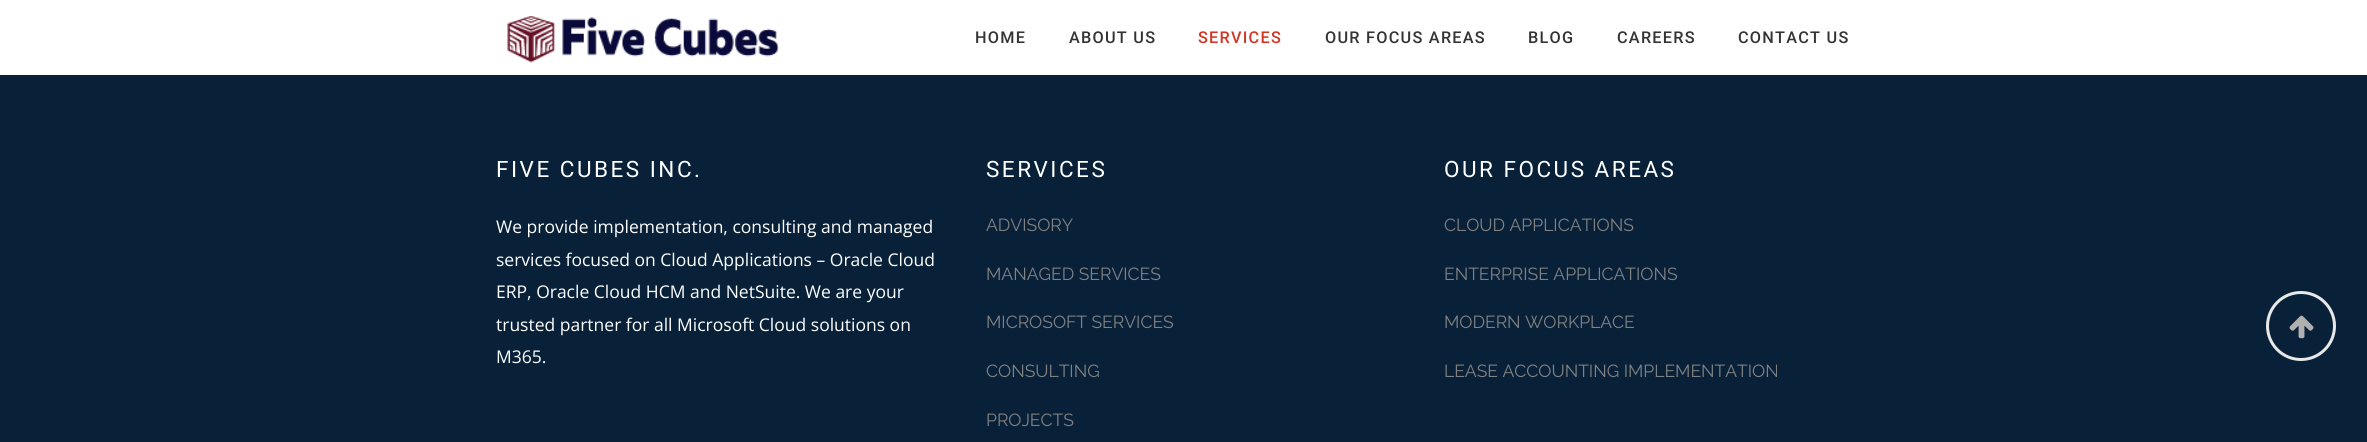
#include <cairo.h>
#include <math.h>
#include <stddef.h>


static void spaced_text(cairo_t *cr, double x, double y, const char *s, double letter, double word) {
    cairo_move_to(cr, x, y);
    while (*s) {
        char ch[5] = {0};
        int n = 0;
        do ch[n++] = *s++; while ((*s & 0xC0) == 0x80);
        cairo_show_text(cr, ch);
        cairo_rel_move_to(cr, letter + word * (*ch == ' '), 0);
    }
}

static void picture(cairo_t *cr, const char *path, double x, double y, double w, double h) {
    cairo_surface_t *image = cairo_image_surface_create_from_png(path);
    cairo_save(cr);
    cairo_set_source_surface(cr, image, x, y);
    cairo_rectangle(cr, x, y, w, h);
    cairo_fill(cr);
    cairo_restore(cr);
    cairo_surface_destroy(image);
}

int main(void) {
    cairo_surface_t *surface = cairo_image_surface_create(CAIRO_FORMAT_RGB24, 2367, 442);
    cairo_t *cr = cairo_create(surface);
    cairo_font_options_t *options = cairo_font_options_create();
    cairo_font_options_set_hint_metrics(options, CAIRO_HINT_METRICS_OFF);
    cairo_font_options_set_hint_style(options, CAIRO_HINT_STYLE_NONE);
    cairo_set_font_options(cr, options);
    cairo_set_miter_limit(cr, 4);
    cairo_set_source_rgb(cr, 0.035, 0.129, 0.224);
    cairo_paint(cr);
    cairo_set_source_rgb(cr, 1, 1, 1);
    cairo_rectangle(cr, 0, 0, 2367, 75);
    cairo_fill(cr);
    picture(cr, "img1.png", 507, 16, 272, 47);
    cairo_select_font_face(cr, "Roboto Medium", CAIRO_FONT_SLANT_NORMAL, CAIRO_FONT_WEIGHT_NORMAL);
    cairo_set_font_size(cr, 16.25);
    cairo_set_source_rgb(cr, 0.2, 0.2, 0.2);
    spaced_text(cr, 975, 43, "HOME", 1.25, 0);
    spaced_text(cr, 1069, 43, "ABOUT US", 1.25, 0);
    cairo_set_source_rgb(cr, 0.82, 0.212, 0.145);
    spaced_text(cr, 1198, 43, "SERVICES", 1.25, 0);
    cairo_set_source_rgb(cr, 0.2, 0.2, 0.2);
    spaced_text(cr, 1325, 43, "OUR FOCUS AREAS", 1.25, 0);
    spaced_text(cr, 1528, 43, "BLOG", 1.25, 0);
    spaced_text(cr, 1617, 43, "CAREERS", 1.25, 0);
    spaced_text(cr, 1738, 43, "CONTACT US", 1.25, 0);
    cairo_select_font_face(cr, "Roboto", CAIRO_FONT_SLANT_NORMAL, CAIRO_FONT_WEIGHT_NORMAL);
    cairo_set_font_size(cr, 22.5);
    cairo_set_source_rgb(cr, 1, 1, 1);
    spaced_text(cr, 496, 177, "FIVE CUBES INC.", 2.5, 0);
    cairo_select_font_face(cr, "Open Sans", CAIRO_FONT_SLANT_NORMAL, CAIRO_FONT_WEIGHT_NORMAL);
    cairo_set_font_size(cr, 17.5);
    cairo_move_to(cr, 496, 233);
    cairo_show_text(cr, "We provide implementation, consulting and managed");
    cairo_move_to(cr, 496, 266);
    cairo_show_text(cr, "services focused on Cloud Applications – Oracle Cloud");
    cairo_move_to(cr, 496, 298);
    cairo_show_text(cr, "ERP, Oracle Cloud HCM and NetSuite. We are your");
    cairo_move_to(cr, 496, 331);
    cairo_show_text(cr, "trusted partner for all Microsoft Cloud solutions on");
    cairo_move_to(cr, 496, 363);
    cairo_show_text(cr, "M365.");
    cairo_select_font_face(cr, "Roboto", CAIRO_FONT_SLANT_NORMAL, CAIRO_FONT_WEIGHT_NORMAL);
    cairo_set_font_size(cr, 22.5);
    spaced_text(cr, 986, 177, "SERVICES", 2.5, 0);
    cairo_select_font_face(cr, "Raleway", CAIRO_FONT_SLANT_NORMAL, CAIRO_FONT_WEIGHT_NORMAL);
    cairo_set_font_size(cr, 17.5);
    cairo_set_source_rgb(cr, 0.506, 0.506, 0.506);
    cairo_move_to(cr, 986, 231);
    cairo_show_text(cr, "ADVISORY");
    cairo_move_to(cr, 986, 280);
    cairo_show_text(cr, "MANAGED SERVICES");
    cairo_move_to(cr, 986, 328);
    cairo_show_text(cr, "MICROSOFT SERVICES");
    cairo_move_to(cr, 986, 377);
    cairo_show_text(cr, "CONSULTING");
    cairo_move_to(cr, 986, 426);
    cairo_show_text(cr, "PROJECTS");
    cairo_select_font_face(cr, "Roboto", CAIRO_FONT_SLANT_NORMAL, CAIRO_FONT_WEIGHT_NORMAL);
    cairo_set_font_size(cr, 22.5);
    cairo_set_source_rgb(cr, 1, 1, 1);
    spaced_text(cr, 1444, 177, "OUR FOCUS AREAS", 2.5, 0);
    cairo_select_font_face(cr, "Raleway", CAIRO_FONT_SLANT_NORMAL, CAIRO_FONT_WEIGHT_NORMAL);
    cairo_set_font_size(cr, 17.5);
    cairo_set_source_rgb(cr, 0.506, 0.506, 0.506);
    cairo_move_to(cr, 1444, 231);
    cairo_show_text(cr, "CLOUD APPLICATIONS");
    cairo_move_to(cr, 1444, 280);
    cairo_show_text(cr, "ENTERPRISE APPLICATIONS");
    cairo_move_to(cr, 1444, 328);
    cairo_show_text(cr, "MODERN WORKPLACE");
    cairo_move_to(cr, 1444, 377);
    cairo_show_text(cr, "LEASE ACCOUNTING IMPLEMENTATION");
    cairo_new_path(cr);
    cairo_arc(cr, 2301, 326, 33.5, 0, 2 * M_PI);
    cairo_set_source_rgb(cr, 0.91, 0.91, 0.91);
    cairo_set_line_width(cr, 3);
    cairo_stroke(cr);
    picture(cr, "img2.png", 2289, 315, 25, 24);
    cairo_surface_write_to_png(surface, "page.png");
    cairo_font_options_destroy(options);
    cairo_destroy(cr);
    cairo_surface_destroy(surface);
    return 0;
}
